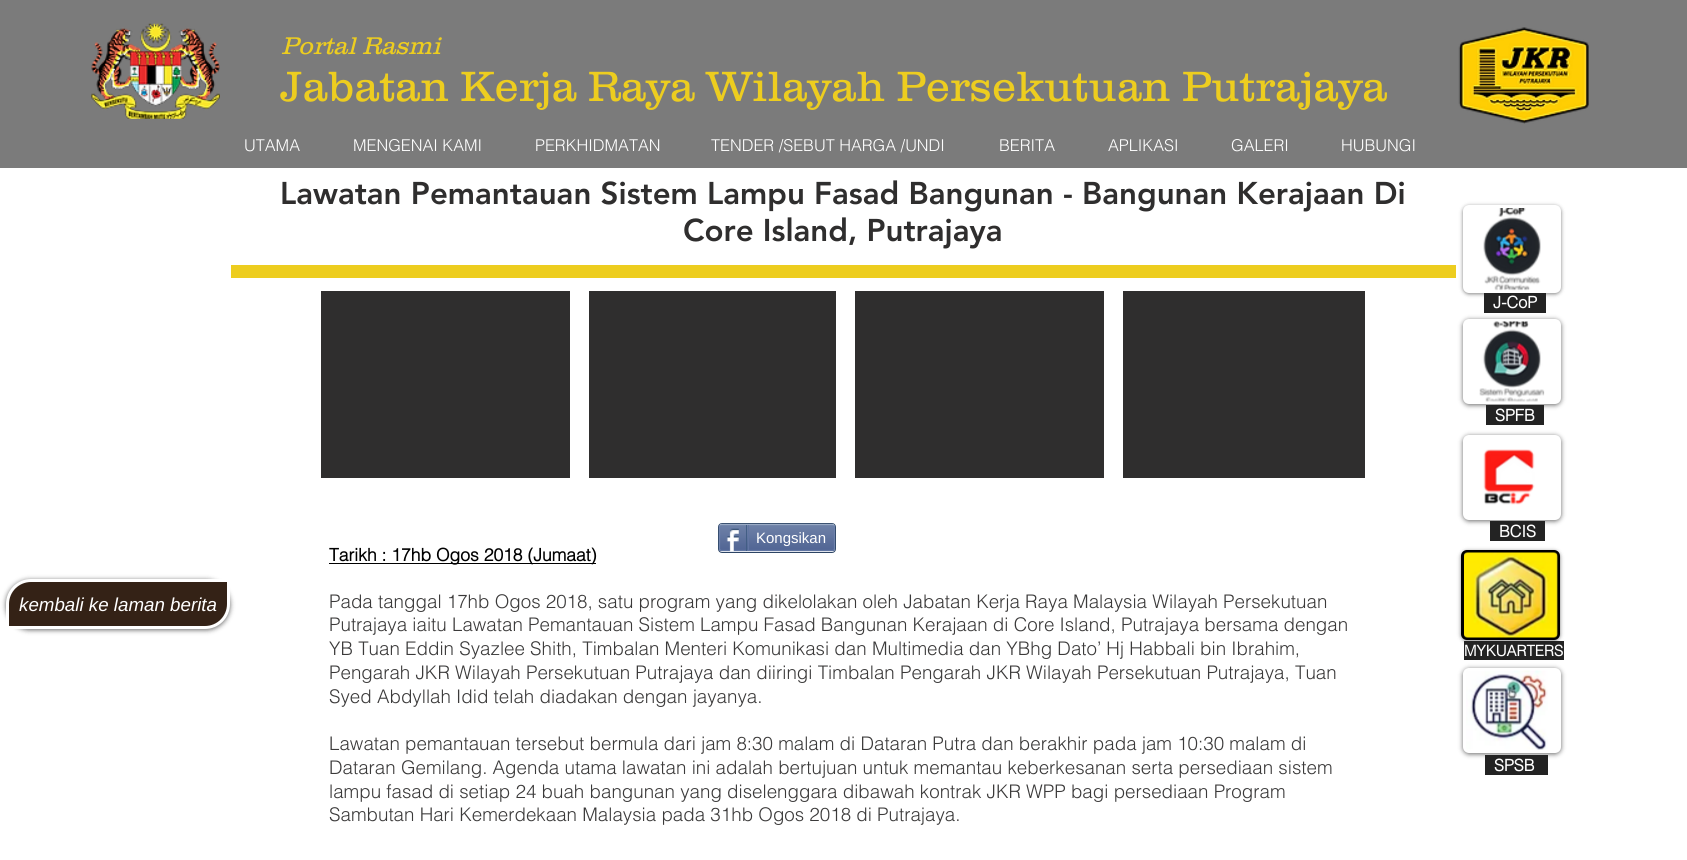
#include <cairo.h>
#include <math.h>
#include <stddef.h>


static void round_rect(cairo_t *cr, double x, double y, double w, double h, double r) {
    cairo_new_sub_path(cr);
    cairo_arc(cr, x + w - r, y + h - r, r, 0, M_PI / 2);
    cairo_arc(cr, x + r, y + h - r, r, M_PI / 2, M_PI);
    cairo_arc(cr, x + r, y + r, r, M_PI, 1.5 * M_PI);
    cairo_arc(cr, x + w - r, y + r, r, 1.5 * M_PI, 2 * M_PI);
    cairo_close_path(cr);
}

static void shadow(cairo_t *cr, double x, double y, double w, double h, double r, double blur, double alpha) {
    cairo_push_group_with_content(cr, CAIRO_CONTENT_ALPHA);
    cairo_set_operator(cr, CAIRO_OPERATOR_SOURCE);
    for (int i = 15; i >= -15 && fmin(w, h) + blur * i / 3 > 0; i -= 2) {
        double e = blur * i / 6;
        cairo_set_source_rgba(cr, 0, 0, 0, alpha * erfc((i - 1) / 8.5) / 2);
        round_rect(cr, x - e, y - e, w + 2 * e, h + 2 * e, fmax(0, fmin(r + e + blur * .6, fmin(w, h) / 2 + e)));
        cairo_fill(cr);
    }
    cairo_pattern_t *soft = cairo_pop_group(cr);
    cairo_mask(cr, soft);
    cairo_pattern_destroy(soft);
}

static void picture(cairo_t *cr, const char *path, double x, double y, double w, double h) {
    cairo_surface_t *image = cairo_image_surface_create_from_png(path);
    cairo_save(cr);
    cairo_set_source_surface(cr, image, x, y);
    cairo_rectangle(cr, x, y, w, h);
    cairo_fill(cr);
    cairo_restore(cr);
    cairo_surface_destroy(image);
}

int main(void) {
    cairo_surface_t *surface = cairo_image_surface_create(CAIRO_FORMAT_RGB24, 1687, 860);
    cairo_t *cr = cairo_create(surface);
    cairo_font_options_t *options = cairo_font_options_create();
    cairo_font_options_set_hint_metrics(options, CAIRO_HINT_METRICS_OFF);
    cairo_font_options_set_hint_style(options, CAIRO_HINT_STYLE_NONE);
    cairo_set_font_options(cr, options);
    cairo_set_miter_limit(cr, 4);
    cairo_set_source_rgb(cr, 1, 1, 1);
    cairo_paint(cr);
    cairo_set_source_rgb(cr, 0.482, 0.482, 0.482);
    cairo_rectangle(cr, 0, 0, 1687, 168);
    cairo_fill(cr);
    picture(cr, "img1.png", 91, 23, 129, 96);
    cairo_select_font_face(cr, "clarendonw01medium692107 Light", CAIRO_FONT_SLANT_ITALIC, CAIRO_FONT_WEIGHT_NORMAL);
    cairo_set_font_size(cr, 25);
    cairo_set_source_rgb(cr, 0.929, 0.804, 0.122);
    cairo_move_to(cr, 281, 54);
    cairo_show_text(cr, "Portal Rasmi");
    cairo_select_font_face(cr, "clarendonw01medium692107 Light", CAIRO_FONT_SLANT_NORMAL, CAIRO_FONT_WEIGHT_NORMAL);
    cairo_set_font_size(cr, 43.75);
    cairo_move_to(cr, 281, 101);
    cairo_show_text(cr, "Jabatan Kerja Raya Wilayah Persekutuan Putrajaya");
    picture(cr, "img2.png", 1458, 27, 131, 97);
    cairo_select_font_face(cr, "helvetica Light", CAIRO_FONT_SLANT_NORMAL, CAIRO_FONT_WEIGHT_NORMAL);
    cairo_set_font_size(cr, 16.25);
    cairo_set_source_rgb(cr, 1, 1, 1);
    cairo_move_to(cr, 244, 151);
    cairo_show_text(cr, "UTAMA");
    cairo_move_to(cr, 353, 151);
    cairo_show_text(cr, "MENGENAI KAMI");
    cairo_move_to(cr, 535, 151);
    cairo_show_text(cr, "PERKHIDMATAN");
    cairo_move_to(cr, 711, 151);
    cairo_show_text(cr, "TENDER /SEBUT HARGA /UNDI");
    cairo_move_to(cr, 999, 151);
    cairo_show_text(cr, "BERITA");
    cairo_move_to(cr, 1108, 151);
    cairo_show_text(cr, "APLIKASI");
    cairo_move_to(cr, 1231, 151);
    cairo_show_text(cr, "GALERI");
    cairo_move_to(cr, 1341, 151);
    cairo_show_text(cr, "HUBUNGI");
    cairo_set_source_rgb(cr, 0, 0, 0);
    shadow(cr, 6, 580, 224, 50, 25, 2.5, 0.6);
    cairo_set_source_rgb(cr, 0.204, 0.133, 0.086);
    cairo_new_path(cr);
    cairo_move_to(cr, 31, 580.5);
    cairo_line_to(cr, 228.5, 580.5);
    cairo_line_to(cr, 228.5, 604);
    cairo_curve_to(cr, 228.5, 617, 218, 627.5, 205, 627.5);
    cairo_line_to(cr, 7.5, 627.5);
    cairo_line_to(cr, 7.5, 604);
    cairo_curve_to(cr, 7.5, 591, 18, 580.5, 31, 580.5);
    cairo_close_path(cr);
    cairo_fill_preserve(cr);
    cairo_set_source_rgb(cr, 1, 1, 1);
    cairo_set_line_width(cr, 3);
    cairo_stroke(cr);
    cairo_select_font_face(cr, "Liberation Sans", CAIRO_FONT_SLANT_ITALIC, CAIRO_FONT_WEIGHT_NORMAL);
    cairo_set_font_size(cr, 18.75);
    cairo_move_to(cr, 19, 611);
    cairo_show_text(cr, "kembali ke laman berita");
    cairo_select_font_face(cr, "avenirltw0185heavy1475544 Black", CAIRO_FONT_SLANT_NORMAL, CAIRO_FONT_WEIGHT_NORMAL);
    cairo_set_font_size(cr, 31.25);
    cairo_set_source_rgb(cr, 0.184, 0.18, 0.18);
    cairo_move_to(cr, 280, 204);
    cairo_show_text(cr, "Lawatan Pemantauan Sistem Lampu Fasad Bangunan - Bangunan Kerajaan Di");
    cairo_move_to(cr, 683, 241);
    cairo_show_text(cr, "Core Island, Putrajaya");
    cairo_set_source_rgb(cr, 0.929, 0.804, 0.122);
    cairo_rectangle(cr, 231, 265, 1225, 13);
    cairo_fill(cr);
    cairo_set_source_rgb(cr, 0.184, 0.18, 0.18);
    cairo_rectangle(cr, 321, 291, 249, 187);
    cairo_fill(cr);
    cairo_rectangle(cr, 589, 291, 247, 187);
    cairo_fill(cr);
    cairo_rectangle(cr, 855, 291, 249, 187);
    cairo_fill(cr);
    cairo_rectangle(cr, 1123, 291, 242, 187);
    cairo_fill(cr);
    round_rect(cr, 718.5, 523.5, 117, 29, 3.5);
    cairo_set_source_rgb(cr, 0.176, 0.271, 0.396);
    cairo_set_line_width(cr, 1);
    cairo_stroke(cr);
    picture(cr, "img3.png", 718, 525, 117, 27);
    cairo_new_path(cr);
    cairo_move_to(cr, 720, 525);
    cairo_line_to(cr, 721, 524.5);
    cairo_line_to(cr, 832.5, 524.5);
    cairo_line_to(cr, 834, 525);
    cairo_set_source_rgb(cr, 0.604, 0.671, 0.776);
    cairo_set_line_width(cr, 1.2);
    cairo_stroke(cr);
    cairo_new_path(cr);
    cairo_move_to(cr, 834, 525);
    cairo_line_to(cr, 834.5, 526);
    cairo_line_to(cr, 834.5, 549);
    cairo_line_to(cr, 834, 550);
    cairo_set_source_rgb(cr, 0.435, 0.514, 0.678);
    cairo_stroke(cr);
    cairo_new_path(cr);
    cairo_move_to(cr, 834, 550);
    cairo_line_to(cr, 832.5, 550.5);
    cairo_line_to(cr, 721, 550.5);
    cairo_line_to(cr, 720, 550);
    cairo_set_source_rgb(cr, 0.38, 0.463, 0.639);
    cairo_stroke(cr);
    cairo_new_path(cr);
    cairo_move_to(cr, 720, 550);
    cairo_line_to(cr, 719.5, 549);
    cairo_line_to(cr, 719.5, 526);
    cairo_line_to(cr, 720, 525);
    cairo_set_source_rgb(cr, 0.435, 0.514, 0.678);
    cairo_stroke(cr);
    picture(cr, "img4.png", 726, 528, 13, 24);
    cairo_set_source_rgb(cr, 0.259, 0.369, 0.522);
    cairo_rectangle(cr, 746, 525, 1, 26);
    cairo_fill(cr);
    cairo_select_font_face(cr, "Liberation Sans", CAIRO_FONT_SLANT_NORMAL, CAIRO_FONT_WEIGHT_NORMAL);
    cairo_set_font_size(cr, 15);
    cairo_set_source_rgb(cr, 1, 1, 1);
    cairo_move_to(cr, 756, 543);
    cairo_show_text(cr, "Kongsikan");
    cairo_set_source_rgb(cr, 0.38, 0.463, 0.639);
    cairo_rectangle(cr, 748, 525, 1, 25);
    cairo_fill(cr);
    cairo_set_source_rgb(cr, 0, 0, 0);
    cairo_rectangle(cr, 329, 563, 267, 1);
    cairo_fill(cr);
    cairo_select_font_face(cr, "helvetica", CAIRO_FONT_SLANT_NORMAL, CAIRO_FONT_WEIGHT_BOLD);
    cairo_set_font_size(cr, 17.5);
    cairo_move_to(cr, 329, 561);
    cairo_show_text(cr, "Tarikh : 17hb Ogos 2018 (Jumaat)");
    cairo_select_font_face(cr, "helvetica Light", CAIRO_FONT_SLANT_NORMAL, CAIRO_FONT_WEIGHT_NORMAL);
    cairo_set_font_size(cr, 18.75);
    cairo_set_source_rgb(cr, 0.231, 0.227, 0.227);
    cairo_move_to(cr, 329, 608);
    cairo_show_text(cr, "Pada tanggal 17hb Ogos 2018, satu program yang dikelolakan oleh Jabatan Kerja Raya Malaysia Wilayah Persekutuan");
    cairo_move_to(cr, 329, 631);
    cairo_show_text(cr, "Putrajaya iaitu Lawatan Pemantauan Sistem Lampu Fasad Bangunan Kerajaan di Core Island, Putrajaya bersama dengan");
    cairo_move_to(cr, 329, 655);
    cairo_show_text(cr, "YB Tuan Eddin Syazlee Shith, Timbalan Menteri Komunikasi dan Multimedia dan YBhg Dato’ Hj Habbali bin Ibrahim,");
    cairo_move_to(cr, 329, 679);
    cairo_show_text(cr, "Pengarah JKR Wilayah Persekutuan Putrajaya dan diiringi Timbalan Pengarah JKR Wilayah Persekutuan Putrajaya, Tuan");
    cairo_move_to(cr, 329, 703);
    cairo_show_text(cr, "Syed Abdyllah Idid telah diadakan dengan jayanya.");
    cairo_move_to(cr, 329, 750);
    cairo_show_text(cr, "Lawatan pemantauan tersebut bermula dari jam 8:30 malam di Dataran Putra dan berakhir pada jam 10:30 malam di");
    cairo_move_to(cr, 329, 774);
    cairo_show_text(cr, "Dataran Gemilang. Agenda utama lawatan ini adalah bertujuan untuk memantau keberkesanan serta persediaan sistem");
    cairo_move_to(cr, 329, 798);
    cairo_show_text(cr, "lampu fasad di setiap 24 buah bangunan yang diselenggara dibawah kontrak JKR WPP bagi persediaan Program");
    cairo_move_to(cr, 329, 821);
    cairo_show_text(cr, "Sambutan Hari Kemerdekaan Malaysia pada 31hb Ogos 2018 di Putrajaya.");
    cairo_set_source_rgb(cr, 0, 0, 0);
    shadow(cr, 1463, 206, 98, 88, 6, 2, 0.5);
    cairo_set_source_rgb(cr, 1, 1, 1);
    round_rect(cr, 1464.5, 206.5, 95, 85, 4.5);
    cairo_fill_preserve(cr);
    cairo_set_line_width(cr, 3);
    cairo_stroke(cr);
    picture(cr, "img5.png", 1483, 208, 58, 83);
    cairo_set_source_rgb(cr, 0.137, 0.137, 0.137);
    cairo_rectangle(cr, 1484, 293, 62, 20);
    cairo_fill(cr);
    cairo_select_font_face(cr, "helvetica", CAIRO_FONT_SLANT_NORMAL, CAIRO_FONT_WEIGHT_BOLD);
    cairo_set_font_size(cr, 16.25);
    cairo_set_source_rgb(cr, 1, 1, 1);
    cairo_move_to(cr, 1493, 308);
    cairo_show_text(cr, "J-CoP");
    cairo_set_source_rgb(cr, 0, 0, 0);
    shadow(cr, 1463, 320, 98, 85, 6, 2.5, 0.6);
    cairo_set_source_rgb(cr, 1, 1, 1);
    round_rect(cr, 1464.5, 320.5, 95, 82, 4.5);
    cairo_fill_preserve(cr);
    cairo_stroke(cr);
    picture(cr, "img6.png", 1479, 321, 66, 81);
    cairo_set_source_rgb(cr, 0.137, 0.137, 0.137);
    cairo_rectangle(cr, 1486, 405, 58, 20);
    cairo_fill(cr);
    cairo_set_source_rgb(cr, 1, 1, 1);
    cairo_move_to(cr, 1495, 421);
    cairo_show_text(cr, "SPFB");
    cairo_set_source_rgb(cr, 0, 0, 0);
    shadow(cr, 1463, 436, 98, 85, 6, 2.5, 0.6);
    cairo_set_source_rgb(cr, 1, 1, 1);
    round_rect(cr, 1464.5, 436.5, 95, 82, 4.5);
    cairo_fill_preserve(cr);
    cairo_stroke(cr);
    picture(cr, "img7.png", 1483, 449, 52, 56);
    cairo_set_source_rgb(cr, 0.137, 0.137, 0.137);
    cairo_rectangle(cr, 1490, 521, 55, 20);
    cairo_fill(cr);
    cairo_set_source_rgb(cr, 1, 1, 1);
    cairo_move_to(cr, 1499, 537);
    cairo_show_text(cr, "BCIS");
    cairo_set_source_rgb(cr, 0, 0, 0);
    shadow(cr, 1461, 551, 99, 90, 6, 2, 0.5);
    round_rect(cr, 1462.5, 551.5, 96, 87, 4.5);
    cairo_set_source_rgb(cr, 0, 0, 0);
    cairo_stroke(cr);
    picture(cr, "img8.png", 1464, 552, 94, 86);
    cairo_set_source_rgb(cr, 0.137, 0.137, 0.137);
    cairo_rectangle(cr, 1464, 641, 100, 19);
    cairo_fill(cr);
    cairo_set_font_size(cr, 15);
    cairo_set_source_rgb(cr, 1, 1, 1);
    cairo_move_to(cr, 1464, 656);
    cairo_show_text(cr, "MYKUARTERS");
    cairo_set_source_rgb(cr, 0, 0, 0);
    shadow(cr, 1463, 669, 98, 85, 6, 2.5, 0.6);
    cairo_set_source_rgb(cr, 1, 1, 1);
    round_rect(cr, 1464.5, 669.5, 95, 82, 4.5);
    cairo_fill_preserve(cr);
    cairo_stroke(cr);
    picture(cr, "img9.png", 1466, 670, 82, 80);
    cairo_set_source_rgb(cr, 0.137, 0.137, 0.137);
    cairo_rectangle(cr, 1485, 755, 63, 20);
    cairo_fill(cr);
    cairo_set_font_size(cr, 16.25);
    cairo_set_source_rgb(cr, 1, 1, 1);
    cairo_move_to(cr, 1494, 771);
    cairo_show_text(cr, "SPSB");
    cairo_surface_write_to_png(surface, "page.png");
    cairo_font_options_destroy(options);
    cairo_destroy(cr);
    cairo_surface_destroy(surface);
    return 0;
}
